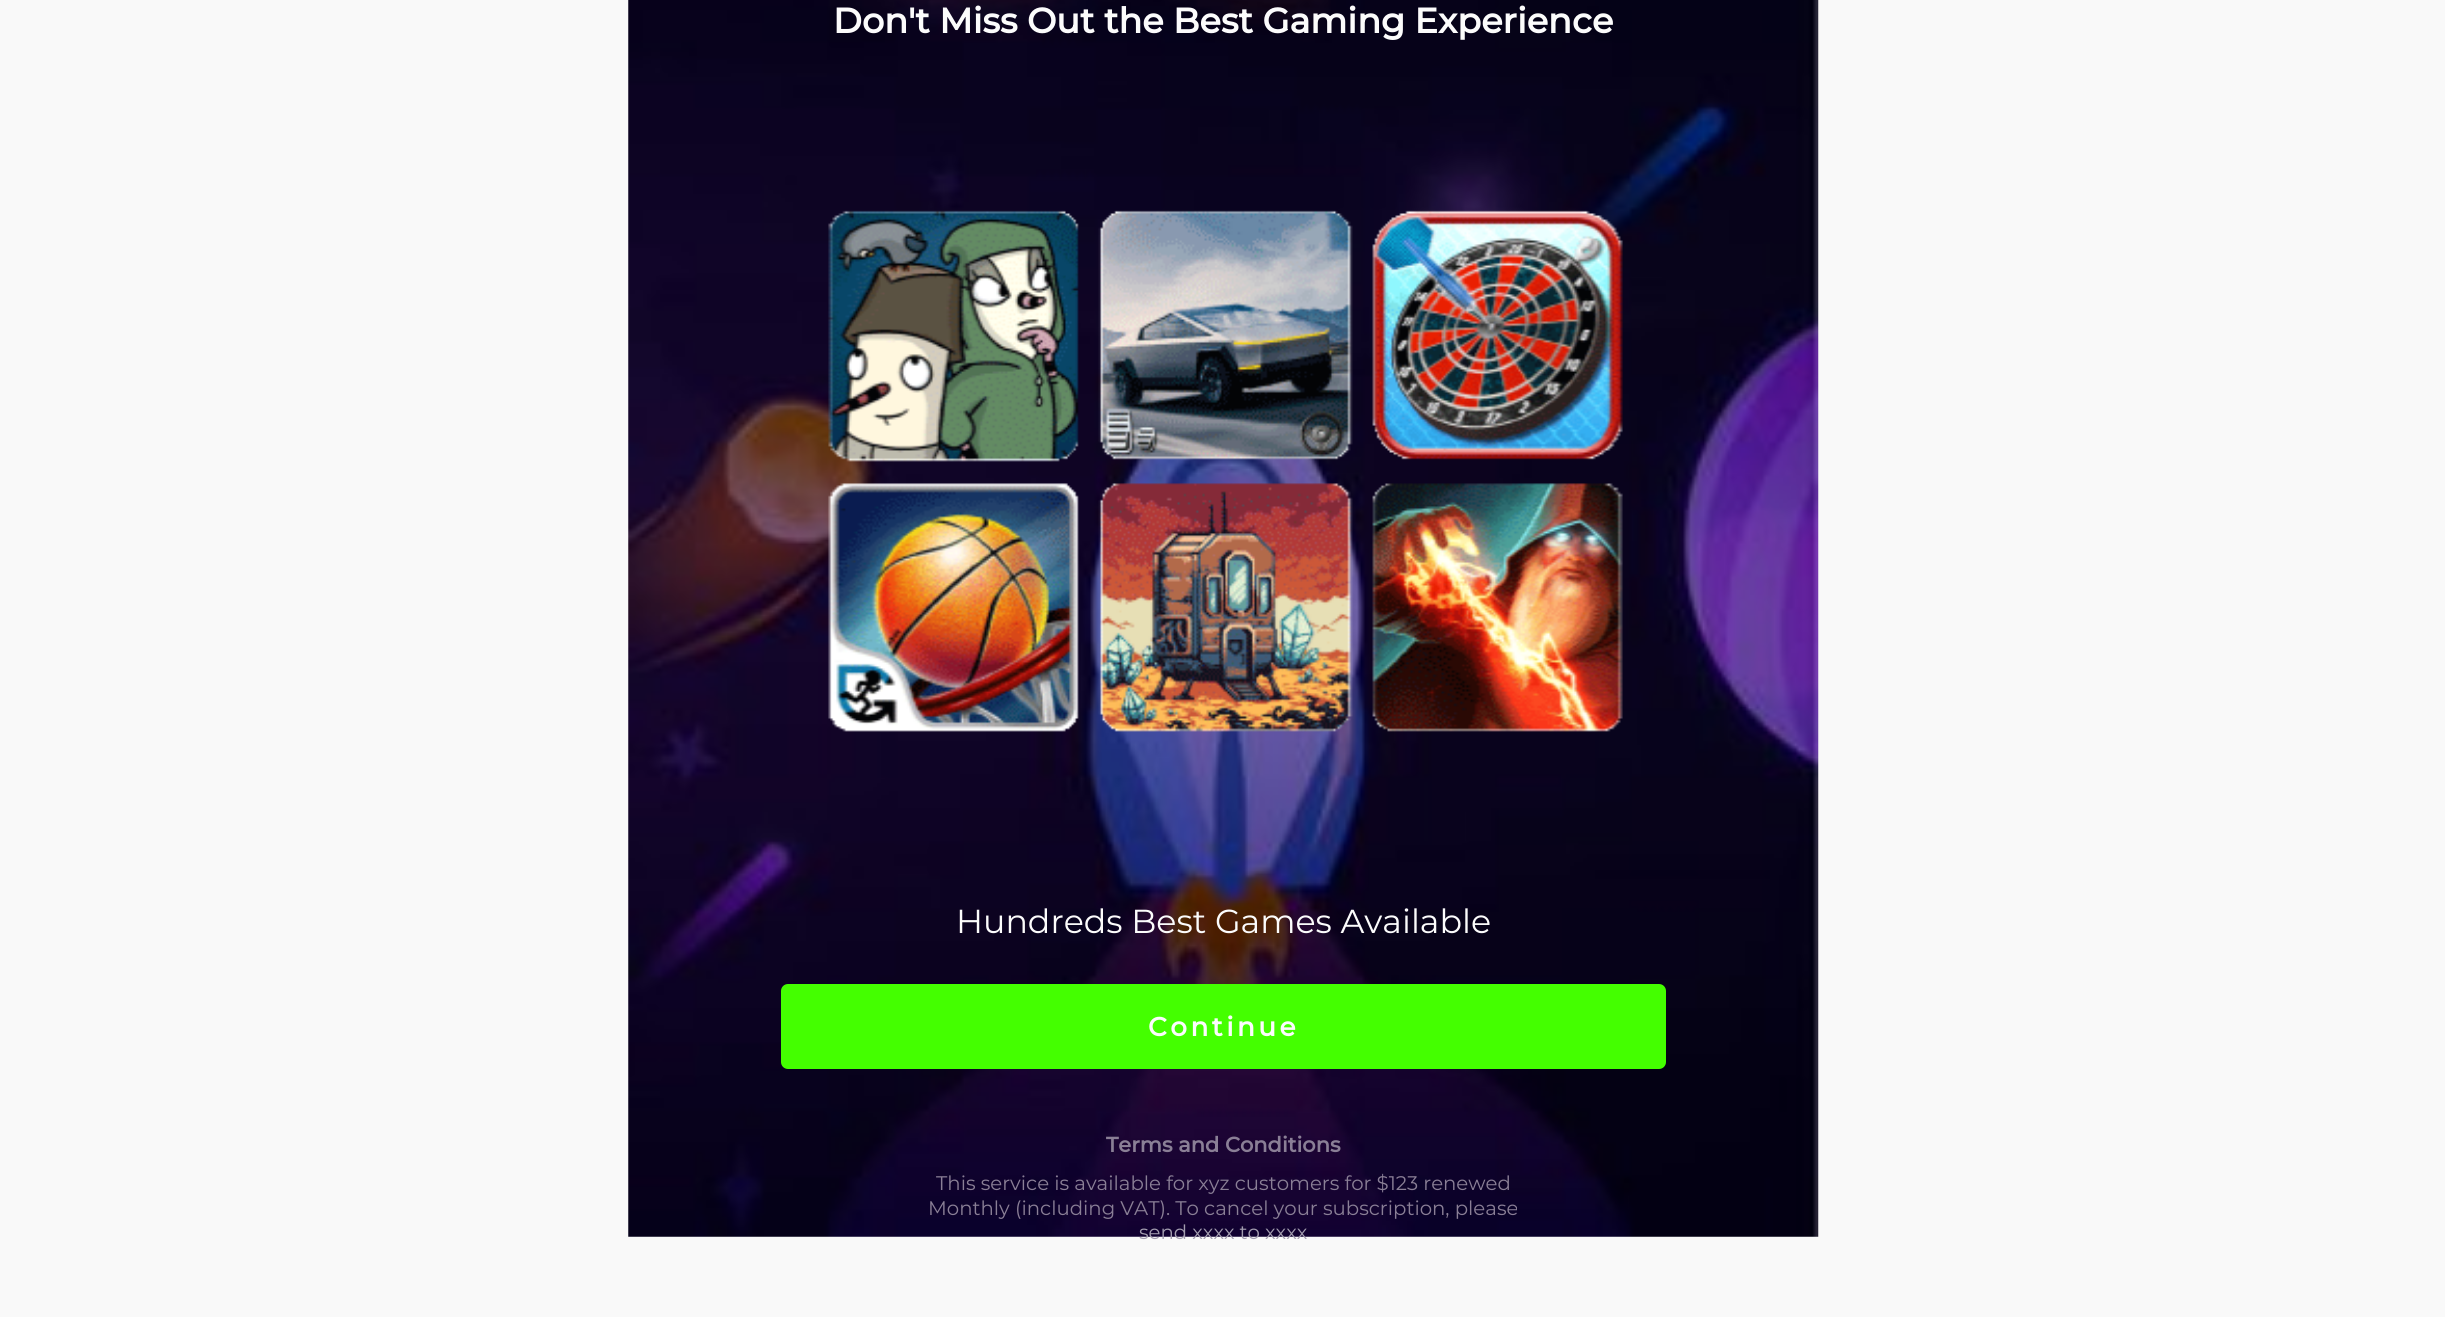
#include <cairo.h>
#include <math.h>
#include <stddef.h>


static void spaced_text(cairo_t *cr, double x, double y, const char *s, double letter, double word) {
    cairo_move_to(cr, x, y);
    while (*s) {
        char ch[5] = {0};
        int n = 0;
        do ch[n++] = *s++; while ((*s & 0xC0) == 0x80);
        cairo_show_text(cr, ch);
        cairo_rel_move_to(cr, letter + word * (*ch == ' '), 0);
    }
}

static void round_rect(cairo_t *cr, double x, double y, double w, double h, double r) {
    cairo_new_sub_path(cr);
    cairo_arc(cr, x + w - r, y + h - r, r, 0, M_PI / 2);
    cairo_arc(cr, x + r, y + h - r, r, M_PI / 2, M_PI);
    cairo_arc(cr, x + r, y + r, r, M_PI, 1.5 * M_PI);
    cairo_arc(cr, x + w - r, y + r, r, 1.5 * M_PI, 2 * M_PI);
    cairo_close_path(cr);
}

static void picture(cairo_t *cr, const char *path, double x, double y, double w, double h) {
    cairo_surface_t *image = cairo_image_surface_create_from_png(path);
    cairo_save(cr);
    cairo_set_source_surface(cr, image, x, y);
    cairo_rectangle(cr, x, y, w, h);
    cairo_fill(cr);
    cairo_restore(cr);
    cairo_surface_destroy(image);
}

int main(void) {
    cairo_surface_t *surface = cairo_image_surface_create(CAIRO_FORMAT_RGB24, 2445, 1317);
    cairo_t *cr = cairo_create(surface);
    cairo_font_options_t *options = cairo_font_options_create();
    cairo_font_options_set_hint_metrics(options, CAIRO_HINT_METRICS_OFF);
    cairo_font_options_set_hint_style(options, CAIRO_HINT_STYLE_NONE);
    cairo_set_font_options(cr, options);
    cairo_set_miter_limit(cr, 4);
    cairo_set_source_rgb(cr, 0.973, 0.973, 0.973);
    cairo_paint(cr);
    picture(cr, "img1.png", 628, 0, 1191, 1237);
    cairo_select_font_face(cr, "Montserrat", CAIRO_FONT_SLANT_NORMAL, CAIRO_FONT_WEIGHT_BOLD);
    cairo_set_font_size(cr, 35);
    cairo_set_source_rgb(cr, 0.988, 0.988, 0.988);
    cairo_move_to(cr, 833, 33);
    cairo_show_text(cr, "Don't Miss Out the Best Gaming Experience");
    picture(cr, "img2.png", 828, 210, 795, 522);
    cairo_select_font_face(cr, "Montserrat", CAIRO_FONT_SLANT_NORMAL, CAIRO_FONT_WEIGHT_NORMAL);
    cairo_set_font_size(cr, 33.25);
    cairo_move_to(cr, 956, 933);
    cairo_show_text(cr, "Hundreds Best Games Available");
    cairo_set_source_rgb(cr, 0.267, 1, 0);
    round_rect(cr, 781, 984, 885, 85, 7);
    cairo_fill(cr);
    cairo_select_font_face(cr, "Montserrat", CAIRO_FONT_SLANT_NORMAL, CAIRO_FONT_WEIGHT_BOLD);
    cairo_set_font_size(cr, 26.25);
    cairo_set_source_rgb(cr, 0.988, 0.988, 0.988);
    spaced_text(cr, 1148, 1036, "Continue", 3.5, 0);
    cairo_set_font_size(cr, 21);
    cairo_set_source_rgb(cr, 0.541, 0.498, 0.588);
    cairo_move_to(cr, 1106, 1152);
    cairo_show_text(cr, "Terms and Conditions");
    cairo_select_font_face(cr, "Montserrat", CAIRO_FONT_SLANT_NORMAL, CAIRO_FONT_WEIGHT_NORMAL);
    cairo_set_font_size(cr, 19.7);
    cairo_move_to(cr, 936, 1190);
    cairo_show_text(cr, "This service is available for xyz customers for $123 renewed");
    cairo_move_to(cr, 928, 1215);
    cairo_show_text(cr, "Monthly (including VAT). To cancel your subscription, please");
    cairo_set_source_rgb(cr, 0.643, 0.62, 0.69);
    cairo_move_to(cr, 1139, 1239);
    cairo_show_text(cr, "send xxxx to xxxx");
    cairo_surface_write_to_png(surface, "page.png");
    cairo_font_options_destroy(options);
    cairo_destroy(cr);
    cairo_surface_destroy(surface);
    return 0;
}
